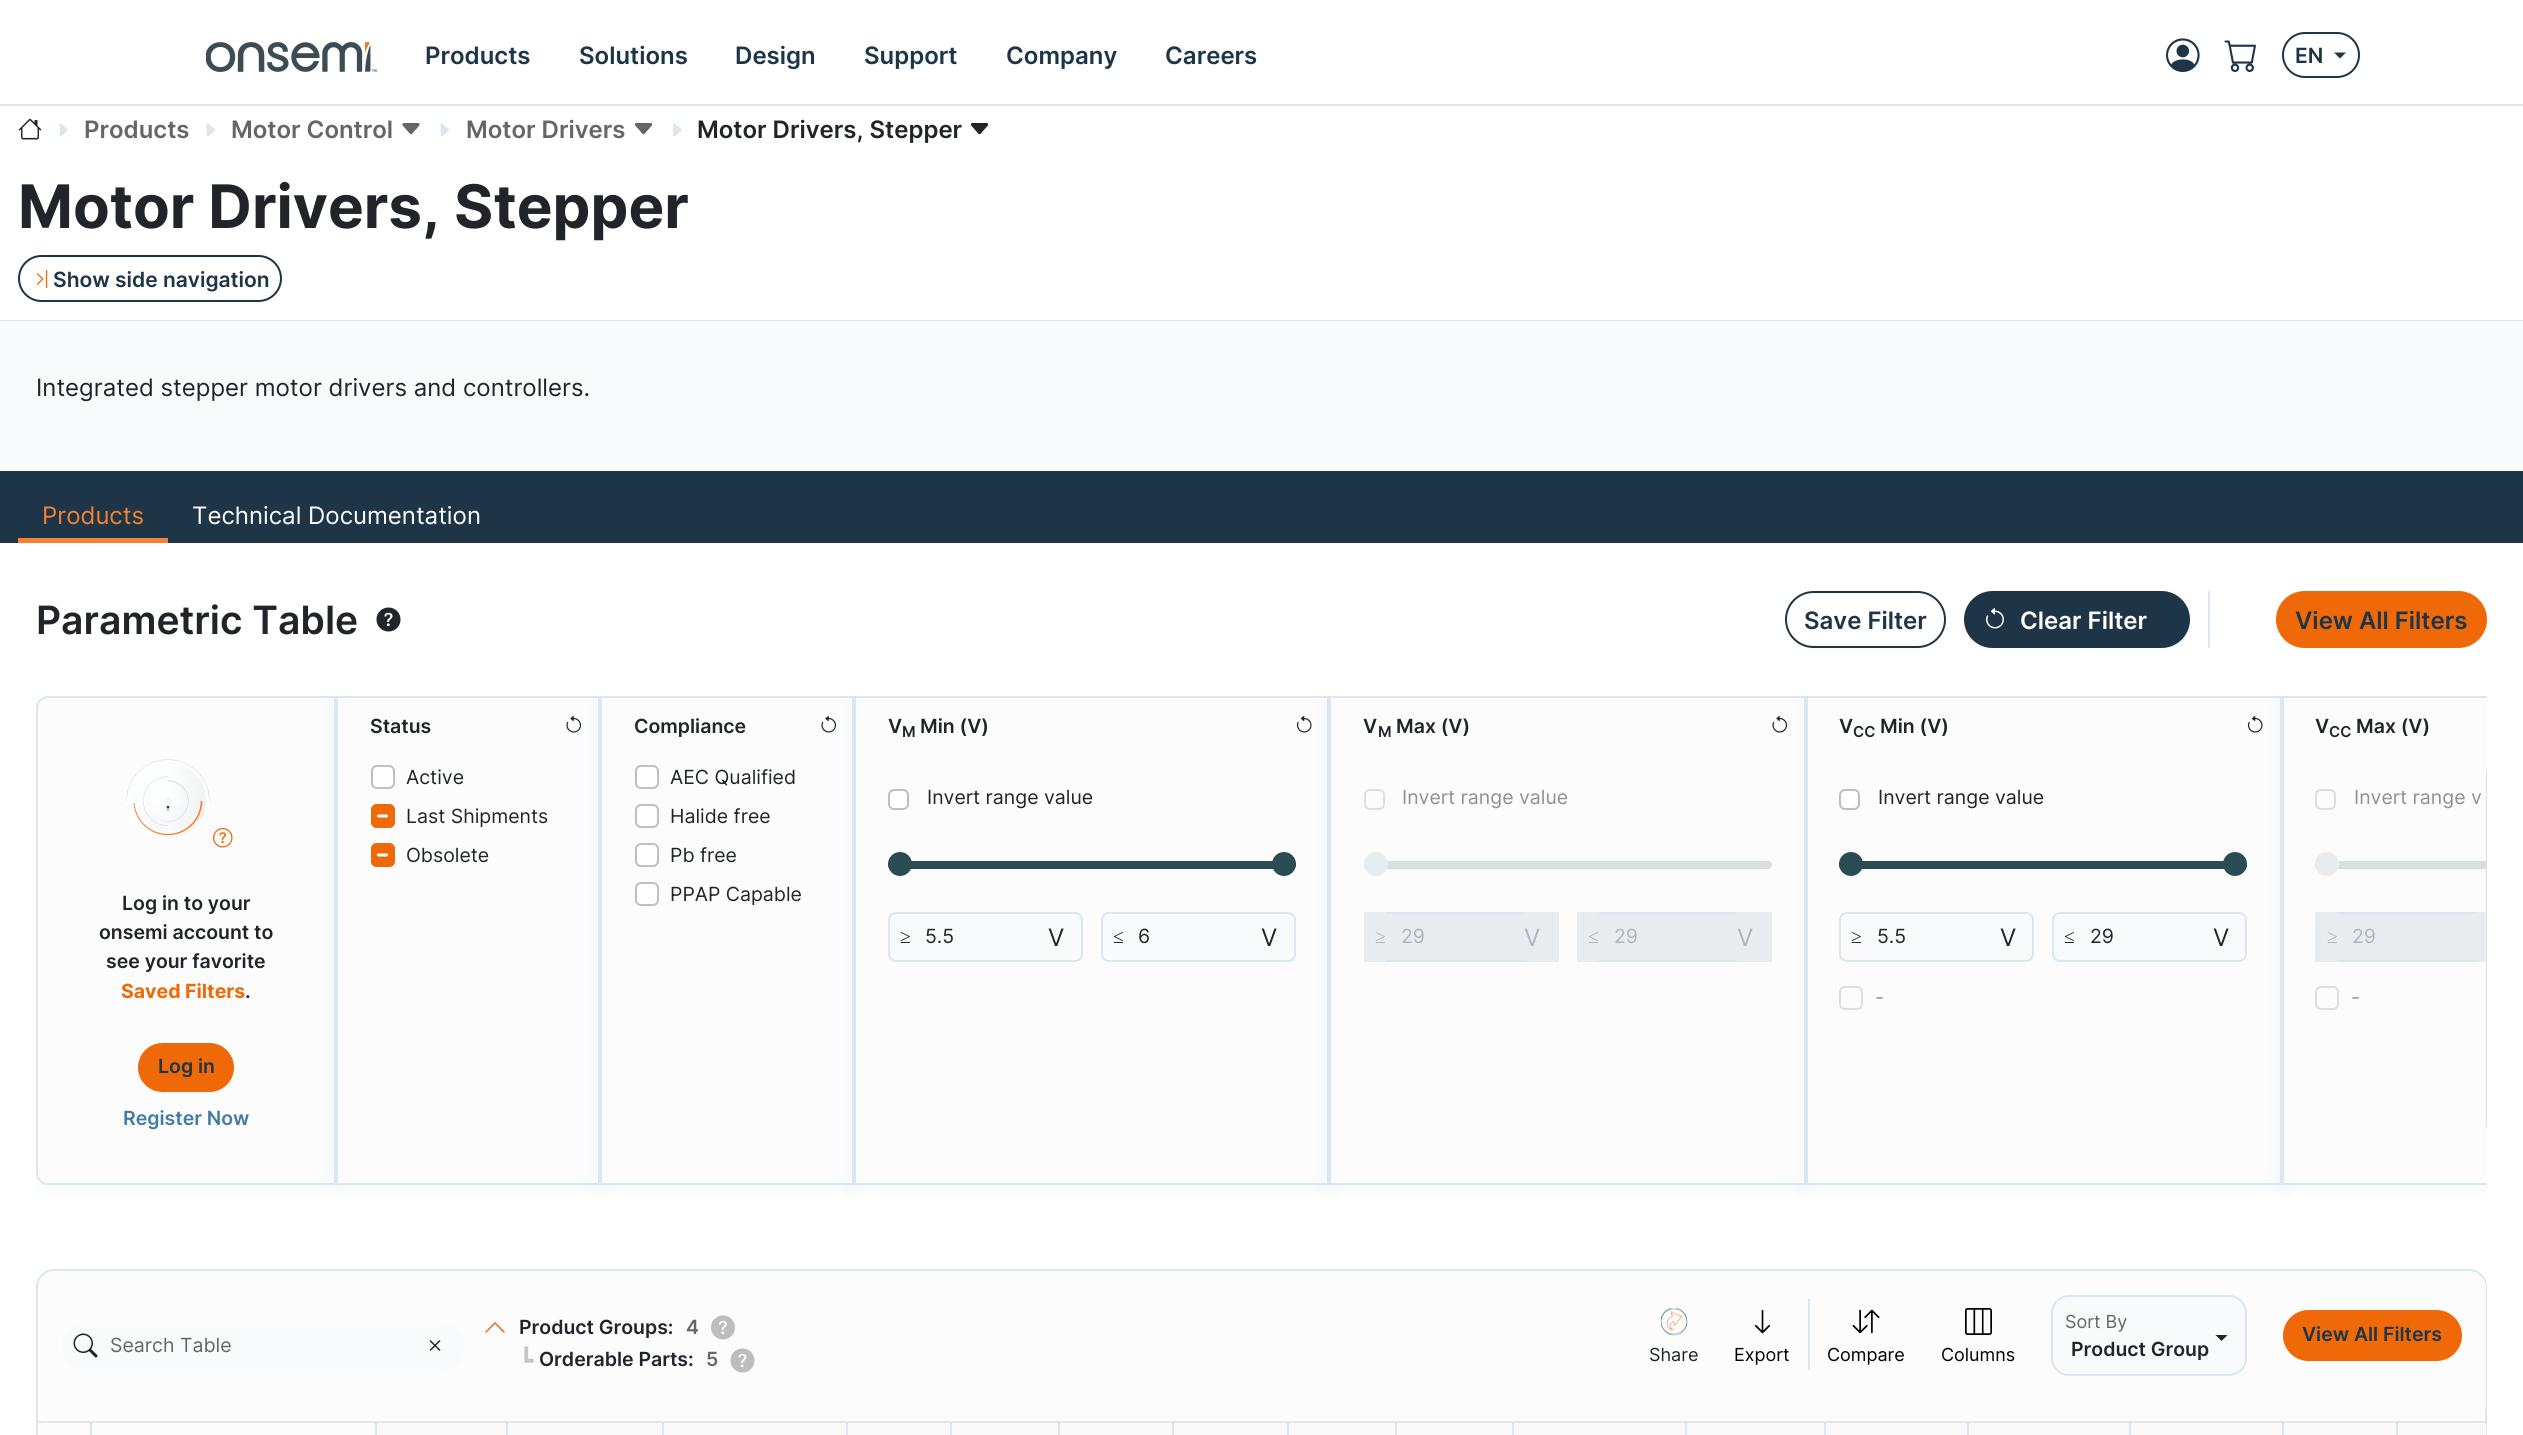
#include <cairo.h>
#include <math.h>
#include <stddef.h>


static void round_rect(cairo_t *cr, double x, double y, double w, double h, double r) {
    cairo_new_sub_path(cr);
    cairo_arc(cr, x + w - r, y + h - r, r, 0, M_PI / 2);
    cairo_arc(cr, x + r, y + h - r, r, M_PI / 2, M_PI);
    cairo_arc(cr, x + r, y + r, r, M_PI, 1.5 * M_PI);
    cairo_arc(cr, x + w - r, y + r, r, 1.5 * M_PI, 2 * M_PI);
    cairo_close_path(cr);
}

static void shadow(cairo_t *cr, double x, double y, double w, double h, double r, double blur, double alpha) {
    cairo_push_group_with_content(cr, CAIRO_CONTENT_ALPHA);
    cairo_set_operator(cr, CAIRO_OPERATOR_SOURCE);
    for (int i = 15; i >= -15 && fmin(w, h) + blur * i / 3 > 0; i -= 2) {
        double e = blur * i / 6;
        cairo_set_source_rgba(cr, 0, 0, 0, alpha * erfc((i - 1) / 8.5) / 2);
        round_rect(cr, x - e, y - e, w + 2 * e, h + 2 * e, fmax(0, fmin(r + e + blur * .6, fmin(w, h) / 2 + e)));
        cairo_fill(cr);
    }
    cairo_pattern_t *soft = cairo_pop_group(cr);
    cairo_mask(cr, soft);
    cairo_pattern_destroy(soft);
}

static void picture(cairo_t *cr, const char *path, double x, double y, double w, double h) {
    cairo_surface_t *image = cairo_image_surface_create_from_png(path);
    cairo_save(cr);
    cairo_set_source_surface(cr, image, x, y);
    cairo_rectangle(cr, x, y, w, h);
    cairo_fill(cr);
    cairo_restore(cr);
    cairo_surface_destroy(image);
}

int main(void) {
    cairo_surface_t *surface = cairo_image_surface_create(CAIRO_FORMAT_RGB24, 2523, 1435);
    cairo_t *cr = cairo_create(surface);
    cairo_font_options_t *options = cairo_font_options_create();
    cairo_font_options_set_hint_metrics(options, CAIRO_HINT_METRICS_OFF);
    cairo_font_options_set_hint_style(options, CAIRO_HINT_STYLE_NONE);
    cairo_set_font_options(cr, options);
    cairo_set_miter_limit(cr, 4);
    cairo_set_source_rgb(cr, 1, 1, 1);
    cairo_paint(cr);
    cairo_set_source_rgb(cr, 0.859, 0.906, 0.941);
    cairo_rectangle(cr, 0, 104, 2523, 2);
    cairo_fill(cr);
    picture(cr, "img1.png", 206, 42, 171, 30);
    cairo_select_font_face(cr, "Inter SemiBold", CAIRO_FONT_SLANT_NORMAL, CAIRO_FONT_WEIGHT_NORMAL);
    cairo_set_font_size(cr, 24);
    cairo_set_source_rgb(cr, 0.114, 0.208, 0.275);
    cairo_move_to(cr, 425, 64);
    cairo_show_text(cr, "Products");
    cairo_move_to(cr, 579, 64);
    cairo_show_text(cr, "Solutions");
    cairo_move_to(cr, 735, 64);
    cairo_show_text(cr, "Design");
    cairo_move_to(cr, 864, 64);
    cairo_show_text(cr, "Support");
    cairo_move_to(cr, 1006, 64);
    cairo_show_text(cr, "Company");
    cairo_move_to(cr, 1165, 64);
    cairo_show_text(cr, "Careers");
    picture(cr, "img2.png", 2166, 38, 34, 34);
    picture(cr, "img3.png", 2224, 40, 32, 32);
    round_rect(cr, 2283, 33, 76, 44, 22);
    cairo_stroke(cr);
    cairo_set_font_size(cr, 21);
    cairo_move_to(cr, 2295, 63);
    cairo_show_text(cr, "EN");
    cairo_new_path(cr);
    cairo_move_to(cr, 2334, 52.5);
    cairo_line_to(cr, 2346, 52.5);
    cairo_line_to(cr, 2340, 58.5);
    cairo_close_path(cr);
    cairo_fill(cr);
    cairo_set_source_rgb(cr, 0.859, 0.906, 0.941);
    cairo_rectangle(cr, 0, 320, 2523, 1);
    cairo_fill(cr);
    picture(cr, "img4.png", 18, 118, 24, 22);
    picture(cr, "img5.png", 59, 123, 9, 14);
    cairo_set_font_size(cr, 24);
    cairo_set_source_rgb(cr, 0.392, 0.4, 0.412);
    cairo_move_to(cr, 84, 138);
    cairo_show_text(cr, "Products");
    picture(cr, "img5.png", 206, 123, 9, 14);
    cairo_move_to(cr, 231, 138);
    cairo_show_text(cr, "Motor Control");
    picture(cr, "img6.png", 402, 123, 18, 12);
    picture(cr, "img5.png", 440, 123, 9, 14);
    cairo_move_to(cr, 466, 138);
    cairo_show_text(cr, "Motor Drivers");
    picture(cr, "img7.png", 634, 123, 19, 12);
    picture(cr, "img8.png", 673, 123, 9, 14);
    cairo_set_source_rgb(cr, 0.129, 0.145, 0.161);
    cairo_move_to(cr, 697, 138);
    cairo_show_text(cr, "Motor Drivers, Stepper");
    picture(cr, "img9.png", 970, 123, 19, 12);
    cairo_select_font_face(cr, "Inter", CAIRO_FONT_SLANT_NORMAL, CAIRO_FONT_WEIGHT_BOLD);
    cairo_set_font_size(cr, 60);
    cairo_move_to(cr, 18, 228);
    cairo_show_text(cr, "Motor Drivers, Stepper");
    round_rect(cr, 19, 256, 262, 45, 22.5);
    cairo_set_source_rgb(cr, 0.114, 0.208, 0.275);
    cairo_stroke(cr);
    picture(cr, "img10.png", 36, 269, 12, 20);
    cairo_select_font_face(cr, "Inter SemiBold", CAIRO_FONT_SLANT_NORMAL, CAIRO_FONT_WEIGHT_NORMAL);
    cairo_set_font_size(cr, 21);
    cairo_move_to(cr, 53, 287);
    cairo_show_text(cr, "Show side navigation");
    cairo_set_source_rgb(cr, 0.973, 0.98, 0.988);
    cairo_rectangle(cr, 0, 321, 2523, 150);
    cairo_fill(cr);
    cairo_select_font_face(cr, "Inter", CAIRO_FONT_SLANT_NORMAL, CAIRO_FONT_WEIGHT_NORMAL);
    cairo_set_font_size(cr, 24);
    cairo_set_source_rgb(cr, 0.129, 0.145, 0.161);
    cairo_move_to(cr, 36, 396);
    cairo_show_text(cr, "Integrated stepper motor drivers and controllers.");
    cairo_set_source_rgb(cr, 0.114, 0.208, 0.275);
    cairo_rectangle(cr, 0, 471, 2523, 72);
    cairo_fill(cr);
    cairo_set_source_rgb(cr, 0.961, 0.506, 0.204);
    cairo_rectangle(cr, 18, 538, 150, 5);
    cairo_fill(cr);
    cairo_move_to(cr, 42, 524);
    cairo_show_text(cr, "Products");
    cairo_set_source_rgb(cr, 1, 1, 1);
    cairo_move_to(cr, 192, 524);
    cairo_show_text(cr, "Technical Documentation");
    cairo_select_font_face(cr, "Inter SemiBold", CAIRO_FONT_SLANT_NORMAL, CAIRO_FONT_WEIGHT_NORMAL);
    cairo_set_font_size(cr, 39);
    cairo_set_source_rgb(cr, 0.129, 0.145, 0.161);
    cairo_move_to(cr, 36, 634);
    cairo_show_text(cr, "Parametric Table");
    picture(cr, "img11.png", 376, 607, 25, 25);
    round_rect(cr, 1786, 592, 159, 55, 27.5);
    cairo_set_source_rgb(cr, 0.114, 0.208, 0.275);
    cairo_stroke(cr);
    cairo_set_font_size(cr, 24);
    cairo_move_to(cr, 1804, 629);
    cairo_show_text(cr, "Save Filter");
    cairo_set_source_rgb(cr, 0.859, 0.906, 0.941);
    cairo_rectangle(cr, 2208, 591, 2, 57);
    cairo_fill(cr);
    cairo_set_source_rgb(cr, 0.114, 0.208, 0.275);
    round_rect(cr, 1965, 592, 224, 55, 27.5);
    cairo_fill_preserve(cr);
    cairo_stroke(cr);
    picture(cr, "img12.png", 1986, 608, 18, 21);
    cairo_set_source_rgb(cr, 1, 1, 1);
    cairo_move_to(cr, 2020, 629);
    cairo_show_text(cr, "Clear Filter");
    cairo_set_source_rgb(cr, 0.941, 0.412, 0.039);
    round_rect(cr, 2277, 592, 209, 55, 27.5);
    cairo_fill_preserve(cr);
    cairo_stroke(cr);
    cairo_set_source_rgb(cr, 0.114, 0.208, 0.275);
    cairo_move_to(cr, 2295, 629);
    cairo_show_text(cr, "View All Filters");
    cairo_save(cr);
    cairo_rectangle(cr, 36, 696, 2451, 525);
    cairo_clip(cr);
    cairo_set_source_rgb(cr, 0.859, 0.906, 0.941);
    shadow(cr, 36, 699, 300, 489, 12, 9, 0.35);
    cairo_restore(cr);
    cairo_set_source_rgb(cr, 0.988, 0.988, 0.992);
    cairo_new_path(cr);
    cairo_move_to(cr, 48, 697);
    cairo_line_to(cr, 335, 697);
    cairo_line_to(cr, 335, 1184);
    cairo_line_to(cr, 48, 1184);
    cairo_curve_to(cr, 42, 1184, 37, 1179, 37, 1173);
    cairo_line_to(cr, 37, 708);
    cairo_curve_to(cr, 37, 702, 42, 697, 48, 697);
    cairo_close_path(cr);
    cairo_fill_preserve(cr);
    cairo_set_source_rgb(cr, 0.859, 0.906, 0.941);
    cairo_stroke(cr);
    cairo_save(cr);
    cairo_rectangle(cr, 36, 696, 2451, 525);
    cairo_clip(cr);
    cairo_set_source_rgb(cr, 0.859, 0.906, 0.941);
    shadow(cr, 336, 699, 264, 489, 0, 9, 0.35);
    cairo_restore(cr);
    cairo_set_source_rgb(cr, 0.988, 0.988, 0.992);
    cairo_rectangle(cr, 337, 697, 262, 487);
    cairo_fill_preserve(cr);
    cairo_set_source_rgb(cr, 0.859, 0.906, 0.941);
    cairo_stroke(cr);
    cairo_set_font_size(cr, 19.5);
    cairo_set_source_rgb(cr, 0.129, 0.145, 0.161);
    cairo_move_to(cr, 370, 733);
    cairo_show_text(cr, "Status");
    picture(cr, "img13.png", 566, 715, 15, 18);
    cairo_set_source_rgb(cr, 1, 1, 1);
    round_rect(cr, 372, 766, 22, 22, 5);
    cairo_fill_preserve(cr);
    cairo_set_source_rgb(cr, 0.749, 0.749, 0.749);
    cairo_stroke(cr);
    cairo_select_font_face(cr, "Inter", CAIRO_FONT_SLANT_NORMAL, CAIRO_FONT_WEIGHT_NORMAL);
    cairo_set_source_rgb(cr, 0.129, 0.145, 0.161);
    cairo_move_to(cr, 406, 784);
    cairo_show_text(cr, "Active");
    cairo_set_source_rgb(cr, 0.941, 0.412, 0.039);
    round_rect(cr, 371, 804, 24, 24, 6);
    cairo_fill(cr);
    cairo_new_path(cr);
    cairo_move_to(cr, 378.5, 816);
    cairo_line_to(cr, 386.5, 816);
    cairo_set_source_rgb(cr, 1, 1, 1);
    cairo_set_line_width(cr, 3.1);
    cairo_set_line_cap(cr, CAIRO_LINE_CAP_ROUND);
    cairo_set_line_join(cr, CAIRO_LINE_JOIN_ROUND);
    cairo_stroke(cr);
    round_rect(cr, 372, 805, 22, 22, 5);
    cairo_set_source_rgb(cr, 0.941, 0.412, 0.039);
    cairo_set_line_width(cr, 2);
    cairo_set_line_cap(cr, CAIRO_LINE_CAP_BUTT);
    cairo_set_line_join(cr, CAIRO_LINE_JOIN_MITER);
    cairo_stroke(cr);
    cairo_set_source_rgb(cr, 0.129, 0.145, 0.161);
    cairo_move_to(cr, 406, 823);
    cairo_show_text(cr, "Last Shipments");
    cairo_set_source_rgb(cr, 0.941, 0.412, 0.039);
    round_rect(cr, 371, 843, 24, 24, 6);
    cairo_fill(cr);
    cairo_new_path(cr);
    cairo_move_to(cr, 378.5, 855);
    cairo_line_to(cr, 386.5, 855);
    cairo_set_source_rgb(cr, 1, 1, 1);
    cairo_set_line_width(cr, 3.1);
    cairo_set_line_cap(cr, CAIRO_LINE_CAP_ROUND);
    cairo_set_line_join(cr, CAIRO_LINE_JOIN_ROUND);
    cairo_stroke(cr);
    round_rect(cr, 372, 844, 22, 22, 5);
    cairo_set_source_rgb(cr, 0.941, 0.412, 0.039);
    cairo_set_line_width(cr, 2);
    cairo_set_line_cap(cr, CAIRO_LINE_CAP_BUTT);
    cairo_set_line_join(cr, CAIRO_LINE_JOIN_MITER);
    cairo_stroke(cr);
    cairo_set_source_rgb(cr, 0.129, 0.145, 0.161);
    cairo_move_to(cr, 406, 862);
    cairo_show_text(cr, "Obsolete");
    cairo_save(cr);
    cairo_rectangle(cr, 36, 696, 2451, 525);
    cairo_clip(cr);
    cairo_set_source_rgb(cr, 0.859, 0.906, 0.941);
    shadow(cr, 600, 699, 254, 489, 0, 9, 0.35);
    cairo_restore(cr);
    cairo_set_source_rgb(cr, 0.988, 0.988, 0.992);
    cairo_rectangle(cr, 601, 697, 252, 487);
    cairo_fill_preserve(cr);
    cairo_set_source_rgb(cr, 0.859, 0.906, 0.941);
    cairo_stroke(cr);
    cairo_select_font_face(cr, "Inter SemiBold", CAIRO_FONT_SLANT_NORMAL, CAIRO_FONT_WEIGHT_NORMAL);
    cairo_set_source_rgb(cr, 0.129, 0.145, 0.161);
    cairo_move_to(cr, 634, 733);
    cairo_show_text(cr, "Compliance");
    picture(cr, "img13.png", 821, 715, 15, 18);
    cairo_set_source_rgb(cr, 1, 1, 1);
    round_rect(cr, 636, 766, 22, 22, 5);
    cairo_fill_preserve(cr);
    cairo_set_source_rgb(cr, 0.749, 0.749, 0.749);
    cairo_stroke(cr);
    cairo_select_font_face(cr, "Inter", CAIRO_FONT_SLANT_NORMAL, CAIRO_FONT_WEIGHT_NORMAL);
    cairo_set_source_rgb(cr, 0.129, 0.145, 0.161);
    cairo_move_to(cr, 670, 784);
    cairo_show_text(cr, "AEC Qualified");
    cairo_set_source_rgb(cr, 1, 1, 1);
    round_rect(cr, 636, 805, 22, 22, 5);
    cairo_fill_preserve(cr);
    cairo_set_source_rgb(cr, 0.749, 0.749, 0.749);
    cairo_stroke(cr);
    cairo_set_source_rgb(cr, 0.129, 0.145, 0.161);
    cairo_move_to(cr, 670, 823);
    cairo_show_text(cr, "Halide free");
    cairo_set_source_rgb(cr, 1, 1, 1);
    round_rect(cr, 636, 844, 22, 22, 5);
    cairo_fill_preserve(cr);
    cairo_set_source_rgb(cr, 0.749, 0.749, 0.749);
    cairo_stroke(cr);
    cairo_set_source_rgb(cr, 0.129, 0.145, 0.161);
    cairo_move_to(cr, 670, 862);
    cairo_show_text(cr, "Pb free");
    cairo_set_source_rgb(cr, 1, 1, 1);
    round_rect(cr, 636, 883, 22, 22, 5);
    cairo_fill_preserve(cr);
    cairo_set_source_rgb(cr, 0.749, 0.749, 0.749);
    cairo_stroke(cr);
    cairo_set_source_rgb(cr, 0.129, 0.145, 0.161);
    cairo_move_to(cr, 670, 901);
    cairo_show_text(cr, "PPAP Capable");
    cairo_save(cr);
    cairo_rectangle(cr, 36, 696, 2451, 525);
    cairo_clip(cr);
    cairo_set_source_rgb(cr, 0.859, 0.906, 0.941);
    shadow(cr, 854, 699, 475, 489, 0, 9, 0.35);
    cairo_restore(cr);
    cairo_set_source_rgb(cr, 0.988, 0.988, 0.992);
    cairo_rectangle(cr, 855, 697, 473, 487);
    cairo_fill_preserve(cr);
    cairo_set_source_rgb(cr, 0.859, 0.906, 0.941);
    cairo_stroke(cr);
    cairo_select_font_face(cr, "Inter SemiBold", CAIRO_FONT_SLANT_NORMAL, CAIRO_FONT_WEIGHT_NORMAL);
    cairo_set_source_rgb(cr, 0.129, 0.145, 0.161);
    cairo_move_to(cr, 888, 733);
    cairo_show_text(cr, "V");
    cairo_set_font_size(cr, 15);
    cairo_move_to(cr, 902, 737);
    cairo_show_text(cr, "M");
    cairo_set_font_size(cr, 19.5);
    cairo_move_to(cr, 920, 733);
    cairo_show_text(cr, "Min (V)");
    picture(cr, "img14.png", 1296, 715, 16, 18);
    cairo_set_source_rgb(cr, 1, 1, 1);
    round_rect(cr, 889, 790, 19, 19, 5);
    cairo_fill_preserve(cr);
    cairo_set_source_rgb(cr, 0.749, 0.749, 0.749);
    cairo_stroke(cr);
    cairo_select_font_face(cr, "Inter", CAIRO_FONT_SLANT_NORMAL, CAIRO_FONT_WEIGHT_NORMAL);
    cairo_set_source_rgb(cr, 0.129, 0.145, 0.161);
    cairo_move_to(cr, 927, 804);
    cairo_show_text(cr, "Invert range value");
    cairo_set_source_rgb(cr, 0.173, 0.298, 0.329);
    round_rect(cr, 888, 861, 408, 8, 4);
    cairo_fill(cr);
    cairo_arc(cr, 900, 864, 12, 0, 2 * M_PI);
    cairo_fill(cr);
    cairo_arc(cr, 1284, 864, 12, 0, 2 * M_PI);
    cairo_fill(cr);
    cairo_set_source_rgb(cr, 0.973, 0.98, 0.988);
    round_rect(cr, 889, 913, 193, 48, 7);
    cairo_fill_preserve(cr);
    cairo_set_source_rgb(cr, 0.859, 0.906, 0.941);
    cairo_stroke(cr);
    cairo_select_font_face(cr, "Liberation Serif", CAIRO_FONT_SLANT_NORMAL, CAIRO_FONT_WEIGHT_NORMAL);
    cairo_set_source_rgb(cr, 0.129, 0.145, 0.161);
    cairo_move_to(cr, 900, 943);
    cairo_show_text(cr, "≥");
    cairo_select_font_face(cr, "Inter", CAIRO_FONT_SLANT_NORMAL, CAIRO_FONT_WEIGHT_NORMAL);
    cairo_move_to(cr, 925, 943);
    cairo_show_text(cr, "5.5");
    cairo_set_font_size(cr, 24);
    cairo_move_to(cr, 1048, 946);
    cairo_show_text(cr, "V");
    cairo_set_source_rgb(cr, 0.973, 0.98, 0.988);
    round_rect(cr, 1102, 913, 193, 48, 7);
    cairo_fill_preserve(cr);
    cairo_set_source_rgb(cr, 0.859, 0.906, 0.941);
    cairo_stroke(cr);
    cairo_select_font_face(cr, "Liberation Serif", CAIRO_FONT_SLANT_NORMAL, CAIRO_FONT_WEIGHT_NORMAL);
    cairo_set_font_size(cr, 19.5);
    cairo_set_source_rgb(cr, 0.129, 0.145, 0.161);
    cairo_move_to(cr, 1113, 943);
    cairo_show_text(cr, "≤");
    cairo_select_font_face(cr, "Inter", CAIRO_FONT_SLANT_NORMAL, CAIRO_FONT_WEIGHT_NORMAL);
    cairo_move_to(cr, 1138, 943);
    cairo_show_text(cr, "6");
    cairo_set_font_size(cr, 24);
    cairo_move_to(cr, 1261, 946);
    cairo_show_text(cr, "V");
    cairo_save(cr);
    cairo_rectangle(cr, 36, 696, 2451, 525);
    cairo_clip(cr);
    cairo_set_source_rgb(cr, 0.859, 0.906, 0.941);
    shadow(cr, 1329, 699, 477, 489, 0, 9, 0.35);
    cairo_restore(cr);
    cairo_set_source_rgb(cr, 0.988, 0.988, 0.992);
    cairo_rectangle(cr, 1330, 697, 475, 487);
    cairo_fill_preserve(cr);
    cairo_set_source_rgb(cr, 0.859, 0.906, 0.941);
    cairo_stroke(cr);
    cairo_select_font_face(cr, "Inter SemiBold", CAIRO_FONT_SLANT_NORMAL, CAIRO_FONT_WEIGHT_NORMAL);
    cairo_set_font_size(cr, 19.5);
    cairo_set_source_rgb(cr, 0.129, 0.145, 0.161);
    cairo_move_to(cr, 1363, 733);
    cairo_show_text(cr, "V");
    cairo_set_font_size(cr, 15);
    cairo_move_to(cr, 1378, 737);
    cairo_show_text(cr, "M");
    cairo_set_font_size(cr, 19.5);
    cairo_move_to(cr, 1396, 733);
    cairo_show_text(cr, "Max (V)");
    picture(cr, "img13.png", 1772, 715, 15, 18);
    round_rect(cr, 1365, 790, 19, 19, 5);
    cairo_set_source_rgb(cr, 0.871, 0.871, 0.871);
    cairo_stroke(cr);
    cairo_select_font_face(cr, "Inter", CAIRO_FONT_SLANT_NORMAL, CAIRO_FONT_WEIGHT_NORMAL);
    cairo_set_source_rgb(cr, 0.561, 0.569, 0.576);
    cairo_move_to(cr, 1402, 804);
    cairo_show_text(cr, "Invert range value");
    cairo_set_source_rgb(cr, 0.851, 0.871, 0.878);
    round_rect(cr, 1364, 861, 408, 8, 4);
    cairo_fill(cr);
    cairo_set_source_rgb(cr, 0.914, 0.925, 0.937);
    cairo_arc(cr, 1376, 864, 12, 0, 2 * M_PI);
    cairo_fill(cr);
    cairo_rectangle(cr, 1386, 914, 138, 46);
    cairo_fill(cr);
    cairo_rectangle(cr, 1365, 913, 193, 48);
    cairo_set_source_rgb(cr, 0.859, 0.906, 0.941);
    cairo_stroke(cr);
    cairo_set_source_rgb(cr, 0.914, 0.925, 0.937);
    cairo_rectangle(cr, 1364, 912, 22, 50);
    cairo_fill(cr);
    cairo_select_font_face(cr, "Liberation Serif", CAIRO_FONT_SLANT_NORMAL, CAIRO_FONT_WEIGHT_NORMAL);
    cairo_set_source_rgb(cr, 0.678, 0.71, 0.741);
    cairo_move_to(cr, 1375, 943);
    cairo_show_text(cr, "≥");
    cairo_select_font_face(cr, "Inter", CAIRO_FONT_SLANT_NORMAL, CAIRO_FONT_WEIGHT_NORMAL);
    cairo_move_to(cr, 1401, 943);
    cairo_show_text(cr, "29");
    cairo_set_source_rgb(cr, 0.914, 0.925, 0.937);
    cairo_rectangle(cr, 1524, 912, 35, 50);
    cairo_fill(cr);
    cairo_set_font_size(cr, 24);
    cairo_set_source_rgb(cr, 0.678, 0.71, 0.741);
    cairo_move_to(cr, 1524, 946);
    cairo_show_text(cr, "V");
    cairo_set_source_rgb(cr, 0.914, 0.925, 0.937);
    cairo_rectangle(cr, 1599, 914, 138, 46);
    cairo_fill(cr);
    cairo_rectangle(cr, 1578, 913, 193, 48);
    cairo_set_source_rgb(cr, 0.859, 0.906, 0.941);
    cairo_stroke(cr);
    cairo_set_source_rgb(cr, 0.914, 0.925, 0.937);
    cairo_rectangle(cr, 1577, 912, 22, 50);
    cairo_fill(cr);
    cairo_select_font_face(cr, "Liberation Serif", CAIRO_FONT_SLANT_NORMAL, CAIRO_FONT_WEIGHT_NORMAL);
    cairo_set_font_size(cr, 19.5);
    cairo_set_source_rgb(cr, 0.678, 0.71, 0.741);
    cairo_move_to(cr, 1588, 943);
    cairo_show_text(cr, "≤");
    cairo_select_font_face(cr, "Inter", CAIRO_FONT_SLANT_NORMAL, CAIRO_FONT_WEIGHT_NORMAL);
    cairo_move_to(cr, 1614, 943);
    cairo_show_text(cr, "29");
    cairo_set_source_rgb(cr, 0.914, 0.925, 0.937);
    cairo_rectangle(cr, 1737, 912, 35, 50);
    cairo_fill(cr);
    cairo_set_font_size(cr, 24);
    cairo_set_source_rgb(cr, 0.678, 0.71, 0.741);
    cairo_move_to(cr, 1737, 946);
    cairo_show_text(cr, "V");
    cairo_save(cr);
    cairo_rectangle(cr, 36, 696, 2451, 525);
    cairo_clip(cr);
    cairo_set_source_rgb(cr, 0.859, 0.906, 0.941);
    shadow(cr, 1806, 699, 476, 489, 0, 9, 0.35);
    cairo_restore(cr);
    cairo_set_source_rgb(cr, 0.988, 0.988, 0.992);
    cairo_rectangle(cr, 1807, 697, 474, 487);
    cairo_fill_preserve(cr);
    cairo_set_source_rgb(cr, 0.859, 0.906, 0.941);
    cairo_stroke(cr);
    cairo_select_font_face(cr, "Inter SemiBold", CAIRO_FONT_SLANT_NORMAL, CAIRO_FONT_WEIGHT_NORMAL);
    cairo_set_font_size(cr, 19.5);
    cairo_set_source_rgb(cr, 0.129, 0.145, 0.161);
    cairo_move_to(cr, 1839, 733);
    cairo_show_text(cr, "V");
    cairo_set_font_size(cr, 15);
    cairo_move_to(cr, 1853, 737);
    cairo_show_text(cr, "CC");
    cairo_set_font_size(cr, 19.5);
    cairo_move_to(cr, 1880, 733);
    cairo_show_text(cr, "Min (V)");
    picture(cr, "img14.png", 2247, 715, 16, 18);
    cairo_set_source_rgb(cr, 1, 1, 1);
    round_rect(cr, 1840, 790, 19, 19, 5);
    cairo_fill_preserve(cr);
    cairo_set_source_rgb(cr, 0.749, 0.749, 0.749);
    cairo_stroke(cr);
    cairo_select_font_face(cr, "Inter", CAIRO_FONT_SLANT_NORMAL, CAIRO_FONT_WEIGHT_NORMAL);
    cairo_set_source_rgb(cr, 0.129, 0.145, 0.161);
    cairo_move_to(cr, 1878, 804);
    cairo_show_text(cr, "Invert range value");
    cairo_set_source_rgb(cr, 0.173, 0.298, 0.329);
    round_rect(cr, 1839, 861, 408, 8, 4);
    cairo_fill(cr);
    cairo_arc(cr, 1851, 864, 12, 0, 2 * M_PI);
    cairo_fill(cr);
    cairo_arc(cr, 2235, 864, 12, 0, 2 * M_PI);
    cairo_fill(cr);
    cairo_set_source_rgb(cr, 0.973, 0.98, 0.988);
    round_rect(cr, 1840, 913, 193, 48, 7);
    cairo_fill_preserve(cr);
    cairo_set_source_rgb(cr, 0.859, 0.906, 0.941);
    cairo_stroke(cr);
    cairo_select_font_face(cr, "Liberation Serif", CAIRO_FONT_SLANT_NORMAL, CAIRO_FONT_WEIGHT_NORMAL);
    cairo_set_source_rgb(cr, 0.129, 0.145, 0.161);
    cairo_move_to(cr, 1851, 943);
    cairo_show_text(cr, "≥");
    cairo_select_font_face(cr, "Inter", CAIRO_FONT_SLANT_NORMAL, CAIRO_FONT_WEIGHT_NORMAL);
    cairo_move_to(cr, 1877, 943);
    cairo_show_text(cr, "5.5");
    cairo_set_font_size(cr, 24);
    cairo_move_to(cr, 2000, 946);
    cairo_show_text(cr, "V");
    cairo_set_source_rgb(cr, 0.973, 0.98, 0.988);
    round_rect(cr, 2053, 913, 193, 48, 7);
    cairo_fill_preserve(cr);
    cairo_set_source_rgb(cr, 0.859, 0.906, 0.941);
    cairo_stroke(cr);
    cairo_select_font_face(cr, "Liberation Serif", CAIRO_FONT_SLANT_NORMAL, CAIRO_FONT_WEIGHT_NORMAL);
    cairo_set_font_size(cr, 19.5);
    cairo_set_source_rgb(cr, 0.129, 0.145, 0.161);
    cairo_move_to(cr, 2064, 943);
    cairo_show_text(cr, "≤");
    cairo_select_font_face(cr, "Inter", CAIRO_FONT_SLANT_NORMAL, CAIRO_FONT_WEIGHT_NORMAL);
    cairo_move_to(cr, 2090, 943);
    cairo_show_text(cr, "29");
    cairo_set_font_size(cr, 24);
    cairo_move_to(cr, 2213, 946);
    cairo_show_text(cr, "V");
    round_rect(cr, 1840, 987, 22, 22, 5);
    cairo_set_source_rgb(cr, 0.871, 0.871, 0.871);
    cairo_stroke(cr);
    cairo_set_font_size(cr, 19.5);
    cairo_set_source_rgb(cr, 0.561, 0.569, 0.576);
    cairo_move_to(cr, 1875, 1004);
    cairo_show_text(cr, "-");
    cairo_save(cr);
    cairo_rectangle(cr, 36, 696, 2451, 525);
    cairo_clip(cr);
    cairo_set_source_rgb(cr, 0.859, 0.906, 0.941);
    shadow(cr, 2282, 699, 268, 489, 0, 9, 0.35);
    cairo_restore(cr);
    cairo_set_source_rgb(cr, 0.988, 0.988, 0.992);
    cairo_rectangle(cr, 2284, 698, 203, 485);
    cairo_fill(cr);
    cairo_save(cr);
    cairo_rectangle(cr, 36, 696, 2451, 525);
    cairo_clip(cr);
    cairo_rectangle(cr, 2283, 697, 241, 487);
    cairo_set_source_rgb(cr, 0.859, 0.906, 0.941);
    cairo_stroke(cr);
    cairo_restore(cr);
    cairo_select_font_face(cr, "Inter SemiBold", CAIRO_FONT_SLANT_NORMAL, CAIRO_FONT_WEIGHT_NORMAL);
    cairo_set_source_rgb(cr, 0.129, 0.145, 0.161);
    cairo_move_to(cr, 2315, 733);
    cairo_show_text(cr, "V");
    cairo_set_font_size(cr, 15);
    cairo_move_to(cr, 2329, 737);
    cairo_show_text(cr, "CC");
    cairo_set_font_size(cr, 19.5);
    cairo_move_to(cr, 2356, 733);
    cairo_show_text(cr, "Max (V)");
    round_rect(cr, 2316, 790, 19, 19, 5);
    cairo_set_source_rgb(cr, 0.871, 0.871, 0.871);
    cairo_stroke(cr);
    cairo_select_font_face(cr, "Inter", CAIRO_FONT_SLANT_NORMAL, CAIRO_FONT_WEIGHT_NORMAL);
    cairo_set_source_rgb(cr, 0.561, 0.569, 0.576);
    cairo_move_to(cr, 2354, 804);
    cairo_show_text(cr, "Invert range v");
    cairo_set_source_rgb(cr, 0.851, 0.871, 0.878);
    cairo_new_path(cr);
    cairo_move_to(cr, 2319, 861);
    cairo_line_to(cr, 2487, 861);
    cairo_line_to(cr, 2487, 869);
    cairo_line_to(cr, 2319, 869);
    cairo_curve_to(cr, 2317, 869, 2315, 867, 2315, 865);
    cairo_curve_to(cr, 2315, 863, 2317, 861, 2319, 861);
    cairo_close_path(cr);
    cairo_fill(cr);
    cairo_set_source_rgb(cr, 0.914, 0.925, 0.937);
    cairo_arc(cr, 2327, 864, 12, 0, 2 * M_PI);
    cairo_fill(cr);
    cairo_rectangle(cr, 2337, 914, 140, 46);
    cairo_fill(cr);
    cairo_save(cr);
    cairo_rectangle(cr, 36, 696, 2451, 525);
    cairo_clip(cr);
    round_rect(cr, 2316, 913, 193, 48, 7);
    cairo_set_source_rgb(cr, 0.859, 0.906, 0.941);
    cairo_stroke(cr);
    cairo_restore(cr);
    cairo_rectangle(cr, 2315, 912, 22, 50);
    cairo_fill(cr);
    cairo_select_font_face(cr, "Liberation Serif", CAIRO_FONT_SLANT_NORMAL, CAIRO_FONT_WEIGHT_NORMAL);
    cairo_set_source_rgb(cr, 0.678, 0.71, 0.741);
    cairo_move_to(cr, 2327, 943);
    cairo_show_text(cr, "≥");
    cairo_select_font_face(cr, "Inter", CAIRO_FONT_SLANT_NORMAL, CAIRO_FONT_WEIGHT_NORMAL);
    cairo_move_to(cr, 2352, 943);
    cairo_show_text(cr, "29");
    cairo_set_source_rgb(cr, 0.914, 0.925, 0.937);
    cairo_rectangle(cr, 2477, 912, 9, 50);
    cairo_fill(cr);
    round_rect(cr, 2316, 987, 22, 22, 5);
    cairo_set_source_rgb(cr, 0.871, 0.871, 0.871);
    cairo_stroke(cr);
    cairo_set_source_rgb(cr, 0.561, 0.569, 0.576);
    cairo_move_to(cr, 2351, 1004);
    cairo_show_text(cr, "-");
    picture(cr, "img15.png", 126, 759, 84, 78);
    picture(cr, "img16.png", 213, 828, 20, 20);
    cairo_select_font_face(cr, "Inter SemiBold", CAIRO_FONT_SLANT_NORMAL, CAIRO_FONT_WEIGHT_NORMAL);
    cairo_set_source_rgb(cr, 0.129, 0.145, 0.161);
    cairo_move_to(cr, 122, 910);
    cairo_show_text(cr, "Log in to your");
    cairo_move_to(cr, 99, 939);
    cairo_show_text(cr, "onsemi account to");
    cairo_move_to(cr, 106, 968);
    cairo_show_text(cr, "see your favorite");
    cairo_select_font_face(cr, "Inter", CAIRO_FONT_SLANT_NORMAL, CAIRO_FONT_WEIGHT_BOLD);
    cairo_set_source_rgb(cr, 0.941, 0.412, 0.039);
    cairo_move_to(cr, 121, 998);
    cairo_show_text(cr, "Saved Filters");
    cairo_select_font_face(cr, "Inter SemiBold", CAIRO_FONT_SLANT_NORMAL, CAIRO_FONT_WEIGHT_NORMAL);
    cairo_set_source_rgb(cr, 0.129, 0.145, 0.161);
    cairo_move_to(cr, 245, 998);
    cairo_show_text(cr, ".");
    cairo_set_source_rgb(cr, 0.941, 0.412, 0.039);
    round_rect(cr, 139, 1044, 94, 47, 23.5);
    cairo_fill_preserve(cr);
    cairo_stroke(cr);
    cairo_set_source_rgb(cr, 0.114, 0.208, 0.275);
    cairo_move_to(cr, 158, 1073);
    cairo_show_text(cr, "Log in");
    cairo_set_source_rgb(cr, 0.263, 0.486, 0.639);
    cairo_move_to(cr, 123, 1125);
    cairo_show_text(cr, "Register Now");
    cairo_set_source_rgb(cr, 0.882, 0.882, 0.882);
    cairo_rectangle(cr, 2486, 771, 1, 356);
    cairo_fill(cr);
    round_rect(cr, 37, 1270, 2449, 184, 17);
    cairo_set_source_rgb(cr, 0.859, 0.906, 0.941);
    cairo_stroke(cr);
    cairo_set_source_rgb(cr, 0.973, 0.98, 0.988);
    round_rect(cr, 38, 1271, 2448, 151, 18);
    cairo_fill(cr);
    cairo_set_source_rgb(cr, 0.859, 0.906, 0.941);
    cairo_rectangle(cr, 90, 1422, 2, 13);
    cairo_fill(cr);
    cairo_rectangle(cr, 375, 1422, 2, 13);
    cairo_fill(cr);
    cairo_set_source_rgb(cr, 0.973, 0.976, 0.98);
    cairo_rectangle(cr, 377, 1423, 2109, 12);
    cairo_fill(cr);
    cairo_set_source_rgb(cr, 0.859, 0.906, 0.941);
    cairo_rectangle(cr, 506, 1422, 2, 13);
    cairo_fill(cr);
    cairo_rectangle(cr, 662, 1422, 2, 13);
    cairo_fill(cr);
    cairo_rectangle(cr, 846, 1422, 2, 13);
    cairo_fill(cr);
    cairo_rectangle(cr, 950, 1422, 2, 13);
    cairo_fill(cr);
    cairo_rectangle(cr, 1058, 1422, 2, 13);
    cairo_fill(cr);
    cairo_rectangle(cr, 1172, 1422, 2, 13);
    cairo_fill(cr);
    cairo_rectangle(cr, 1287, 1422, 2, 13);
    cairo_fill(cr);
    cairo_rectangle(cr, 1395, 1422, 2, 13);
    cairo_fill(cr);
    cairo_rectangle(cr, 1512, 1422, 2, 13);
    cairo_fill(cr);
    cairo_rectangle(cr, 1685, 1422, 2, 13);
    cairo_fill(cr);
    cairo_rectangle(cr, 1824, 1422, 2, 13);
    cairo_fill(cr);
    cairo_rectangle(cr, 1967, 1422, 2, 13);
    cairo_fill(cr);
    cairo_rectangle(cr, 2129, 1422, 2, 13);
    cairo_fill(cr);
    cairo_rectangle(cr, 2282, 1422, 2, 13);
    cairo_fill(cr);
    cairo_rectangle(cr, 2396, 1422, 2, 13);
    cairo_fill(cr);
    cairo_set_source_rgb(cr, 0.89, 0.906, 0.922);
    cairo_rectangle(cr, 38, 1421, 2448, 2);
    cairo_fill(cr);
    cairo_set_source_rgb(cr, 0.988, 0.988, 0.992);
    round_rect(cr, 38, 1271, 2448, 150, 18);
    cairo_fill(cr);
    cairo_set_source_rgb(cr, 0.973, 0.98, 0.988);
    round_rect(cr, 62, 1322, 403, 48, 24);
    cairo_fill(cr);
    picture(cr, "img17.png", 73, 1333, 25, 25);
    cairo_select_font_face(cr, "Inter", CAIRO_FONT_SLANT_NORMAL, CAIRO_FONT_WEIGHT_NORMAL);
    cairo_set_source_rgb(cr, 0.392, 0.4, 0.412);
    cairo_move_to(cr, 110, 1352);
    cairo_show_text(cr, "Search Table");
    picture(cr, "img18.png", 429, 1340, 12, 11);
    picture(cr, "img19.png", 485, 1322, 20, 11);
    cairo_select_font_face(cr, "Inter SemiBold", CAIRO_FONT_SLANT_NORMAL, CAIRO_FONT_WEIGHT_NORMAL);
    cairo_set_source_rgb(cr, 0.129, 0.145, 0.161);
    cairo_move_to(cr, 519, 1334);
    cairo_show_text(cr, "Product Groups:");
    cairo_set_source_rgb(cr, 0.392, 0.4, 0.412);
    cairo_move_to(cr, 686, 1334);
    cairo_show_text(cr, "4");
    picture(cr, "img20.png", 711, 1315, 24, 25);
    cairo_select_font_face(cr, "DejaVu Sans", CAIRO_FONT_SLANT_NORMAL, CAIRO_FONT_WEIGHT_NORMAL);
    cairo_set_font_size(cr, 24);
    cairo_set_source_rgb(cr, 0.773, 0.776, 0.784);
    cairo_move_to(cr, 519, 1369);
    cairo_show_text(cr, "┗");
    cairo_select_font_face(cr, "Inter SemiBold", CAIRO_FONT_SLANT_NORMAL, CAIRO_FONT_WEIGHT_NORMAL);
    cairo_set_font_size(cr, 19.5);
    cairo_set_source_rgb(cr, 0.129, 0.145, 0.161);
    cairo_move_to(cr, 539, 1366);
    cairo_show_text(cr, "Orderable Parts:");
    cairo_set_source_rgb(cr, 0.392, 0.4, 0.412);
    cairo_move_to(cr, 706, 1366);
    cairo_show_text(cr, "5");
    picture(cr, "img21.png", 730, 1348, 25, 25);
    cairo_set_source_rgb(cr, 0.973, 0.98, 0.988);
    round_rect(cr, 2052, 1296, 194, 79, 17);
    cairo_fill_preserve(cr);
    cairo_set_source_rgb(cr, 0.859, 0.906, 0.941);
    cairo_stroke(cr);
    cairo_select_font_face(cr, "Inter", CAIRO_FONT_SLANT_NORMAL, CAIRO_FONT_WEIGHT_NORMAL);
    cairo_set_font_size(cr, 18);
    cairo_set_source_rgb(cr, 0.392, 0.4, 0.412);
    cairo_move_to(cr, 2065, 1328);
    cairo_show_text(cr, "Sort By");
    cairo_set_source_rgb(cr, 0.129, 0.145, 0.161);
    cairo_new_path(cr);
    cairo_move_to(cr, 2215.5, 1335);
    cairo_line_to(cr, 2227.5, 1335);
    cairo_line_to(cr, 2221.5, 1341);
    cairo_close_path(cr);
    cairo_fill(cr);
    cairo_select_font_face(cr, "Inter SemiBold", CAIRO_FONT_SLANT_NORMAL, CAIRO_FONT_WEIGHT_NORMAL);
    cairo_set_font_size(cr, 19.5);
    cairo_move_to(cr, 2071, 1356);
    cairo_show_text(cr, "Product Group");
    cairo_set_source_rgb(cr, 0.941, 0.412, 0.039);
    round_rect(cr, 2284, 1311, 177, 49, 24.5);
    cairo_fill_preserve(cr);
    cairo_stroke(cr);
    cairo_set_source_rgb(cr, 0.114, 0.208, 0.275);
    cairo_move_to(cr, 2302, 1341);
    cairo_show_text(cr, "View All Filters");
    picture(cr, "img22.png", 1661, 1308, 27, 28);
    cairo_select_font_face(cr, "Inter", CAIRO_FONT_SLANT_NORMAL, CAIRO_FONT_WEIGHT_NORMAL);
    cairo_set_font_size(cr, 18);
    cairo_set_source_rgb(cr, 0.129, 0.145, 0.161);
    cairo_move_to(cr, 1649, 1361);
    cairo_show_text(cr, "Share");
    cairo_set_source_rgb(cr, 0.859, 0.906, 0.941);
    cairo_rectangle(cr, 1808, 1299, 2, 71);
    cairo_fill(cr);
    picture(cr, "img23.png", 1755, 1309, 15, 25);
    cairo_set_source_rgb(cr, 0, 0, 0);
    cairo_move_to(cr, 1734, 1361);
    cairo_show_text(cr, "Export");
    picture(cr, "img24.png", 1852, 1309, 28, 25);
    cairo_move_to(cr, 1827, 1361);
    cairo_show_text(cr, "Compare");
    picture(cr, "img25.png", 1965, 1308, 27, 27);
    cairo_move_to(cr, 1941, 1361);
    cairo_show_text(cr, "Columns");
    cairo_set_source_rgb(cr, 0.988, 0.988, 0.992);
    cairo_rectangle(cr, 38, 1423, 52, 12);
    cairo_fill(cr);
    cairo_rectangle(cr, 92, 1423, 283, 12);
    cairo_fill(cr);
    cairo_surface_write_to_png(surface, "page.png");
    cairo_font_options_destroy(options);
    cairo_destroy(cr);
    cairo_surface_destroy(surface);
    return 0;
}
